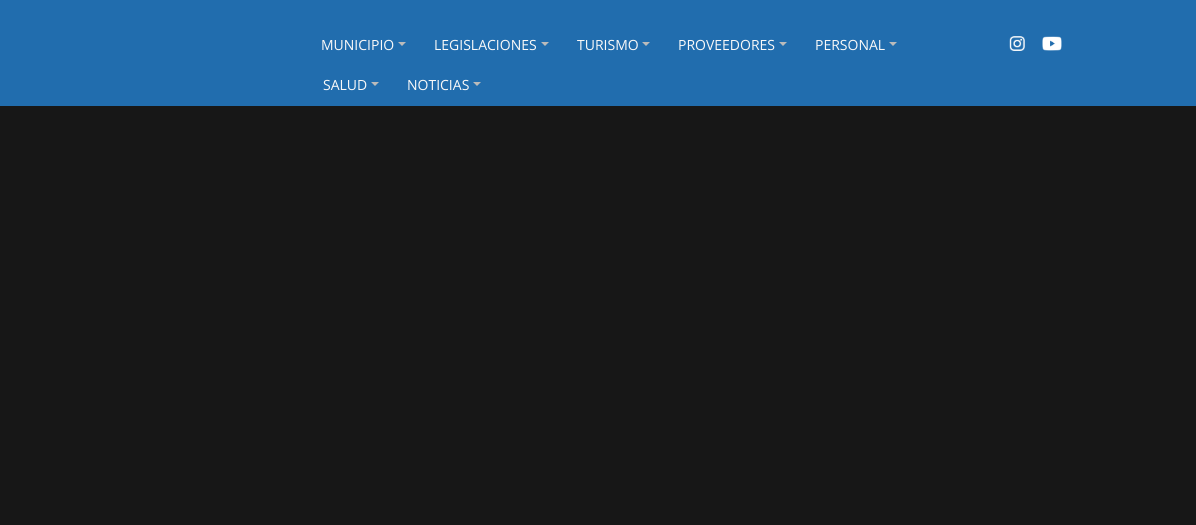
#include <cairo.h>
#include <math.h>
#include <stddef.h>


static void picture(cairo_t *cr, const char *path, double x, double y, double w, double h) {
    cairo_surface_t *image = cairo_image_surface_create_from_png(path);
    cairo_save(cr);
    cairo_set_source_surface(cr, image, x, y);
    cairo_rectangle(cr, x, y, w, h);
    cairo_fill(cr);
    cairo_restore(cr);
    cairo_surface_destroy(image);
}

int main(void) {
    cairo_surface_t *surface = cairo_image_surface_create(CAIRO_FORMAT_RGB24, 1196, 525);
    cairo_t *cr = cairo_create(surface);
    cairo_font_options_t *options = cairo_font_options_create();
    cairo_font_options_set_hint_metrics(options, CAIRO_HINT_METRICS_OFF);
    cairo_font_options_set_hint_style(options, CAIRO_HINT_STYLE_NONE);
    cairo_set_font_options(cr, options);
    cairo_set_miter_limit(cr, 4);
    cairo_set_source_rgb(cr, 0.09, 0.09, 0.09);
    cairo_paint(cr);
    cairo_set_source_rgb(cr, 0.129, 0.427, 0.682);
    cairo_rectangle(cr, 0, 0, 1196, 106);
    cairo_fill(cr);
    cairo_select_font_face(cr, "Open Sans", CAIRO_FONT_SLANT_NORMAL, CAIRO_FONT_WEIGHT_NORMAL);
    cairo_set_font_size(cr, 14);
    cairo_set_source_rgb(cr, 0.976, 0.976, 0.976);
    cairo_move_to(cr, 321, 50);
    cairo_show_text(cr, "MUNICIPIO");
    cairo_set_source_rgb(cr, 0.733, 0.733, 0.733);
    cairo_new_path(cr);
    cairo_move_to(cr, 398, 42);
    cairo_line_to(cr, 406, 42);
    cairo_line_to(cr, 402, 46);
    cairo_close_path(cr);
    cairo_fill(cr);
    cairo_set_source_rgb(cr, 0.976, 0.976, 0.976);
    cairo_move_to(cr, 434, 50);
    cairo_show_text(cr, "LEGISLACIONES");
    cairo_set_source_rgb(cr, 0.733, 0.733, 0.733);
    cairo_new_path(cr);
    cairo_move_to(cr, 541, 42);
    cairo_line_to(cr, 549, 42);
    cairo_line_to(cr, 545, 46);
    cairo_close_path(cr);
    cairo_fill(cr);
    cairo_set_source_rgb(cr, 0.976, 0.976, 0.976);
    cairo_move_to(cr, 577, 50);
    cairo_show_text(cr, "TURISMO");
    cairo_set_source_rgb(cr, 0.733, 0.733, 0.733);
    cairo_new_path(cr);
    cairo_move_to(cr, 642, 42);
    cairo_line_to(cr, 650, 42);
    cairo_line_to(cr, 646, 46);
    cairo_close_path(cr);
    cairo_fill(cr);
    cairo_set_source_rgb(cr, 0.976, 0.976, 0.976);
    cairo_move_to(cr, 678, 50);
    cairo_show_text(cr, "PROVEEDORES");
    cairo_set_source_rgb(cr, 0.733, 0.733, 0.733);
    cairo_new_path(cr);
    cairo_move_to(cr, 779, 42);
    cairo_line_to(cr, 787, 42);
    cairo_line_to(cr, 783, 46);
    cairo_close_path(cr);
    cairo_fill(cr);
    cairo_set_source_rgb(cr, 0.976, 0.976, 0.976);
    cairo_move_to(cr, 815, 50);
    cairo_show_text(cr, "PERSONAL");
    cairo_set_source_rgb(cr, 0.733, 0.733, 0.733);
    cairo_new_path(cr);
    cairo_move_to(cr, 889, 42);
    cairo_line_to(cr, 897, 42);
    cairo_line_to(cr, 893, 46);
    cairo_close_path(cr);
    cairo_fill(cr);
    cairo_set_source_rgb(cr, 0.976, 0.976, 0.976);
    cairo_move_to(cr, 323, 90);
    cairo_show_text(cr, "SALUD");
    cairo_set_source_rgb(cr, 0.733, 0.733, 0.733);
    cairo_new_path(cr);
    cairo_move_to(cr, 371, 82);
    cairo_line_to(cr, 379, 82);
    cairo_line_to(cr, 375, 86);
    cairo_close_path(cr);
    cairo_fill(cr);
    cairo_set_source_rgb(cr, 0.976, 0.976, 0.976);
    cairo_move_to(cr, 407, 90);
    cairo_show_text(cr, "NOTICIAS");
    cairo_set_source_rgb(cr, 0.733, 0.733, 0.733);
    cairo_new_path(cr);
    cairo_move_to(cr, 473, 82);
    cairo_line_to(cr, 481, 82);
    cairo_line_to(cr, 477, 86);
    cairo_close_path(cr);
    cairo_fill(cr);
    picture(cr, "img1.png", 1009, 36, 16, 15);
    picture(cr, "img2.png", 1042, 36, 20, 15);
    cairo_surface_write_to_png(surface, "page.png");
    cairo_font_options_destroy(options);
    cairo_destroy(cr);
    cairo_surface_destroy(surface);
    return 0;
}
